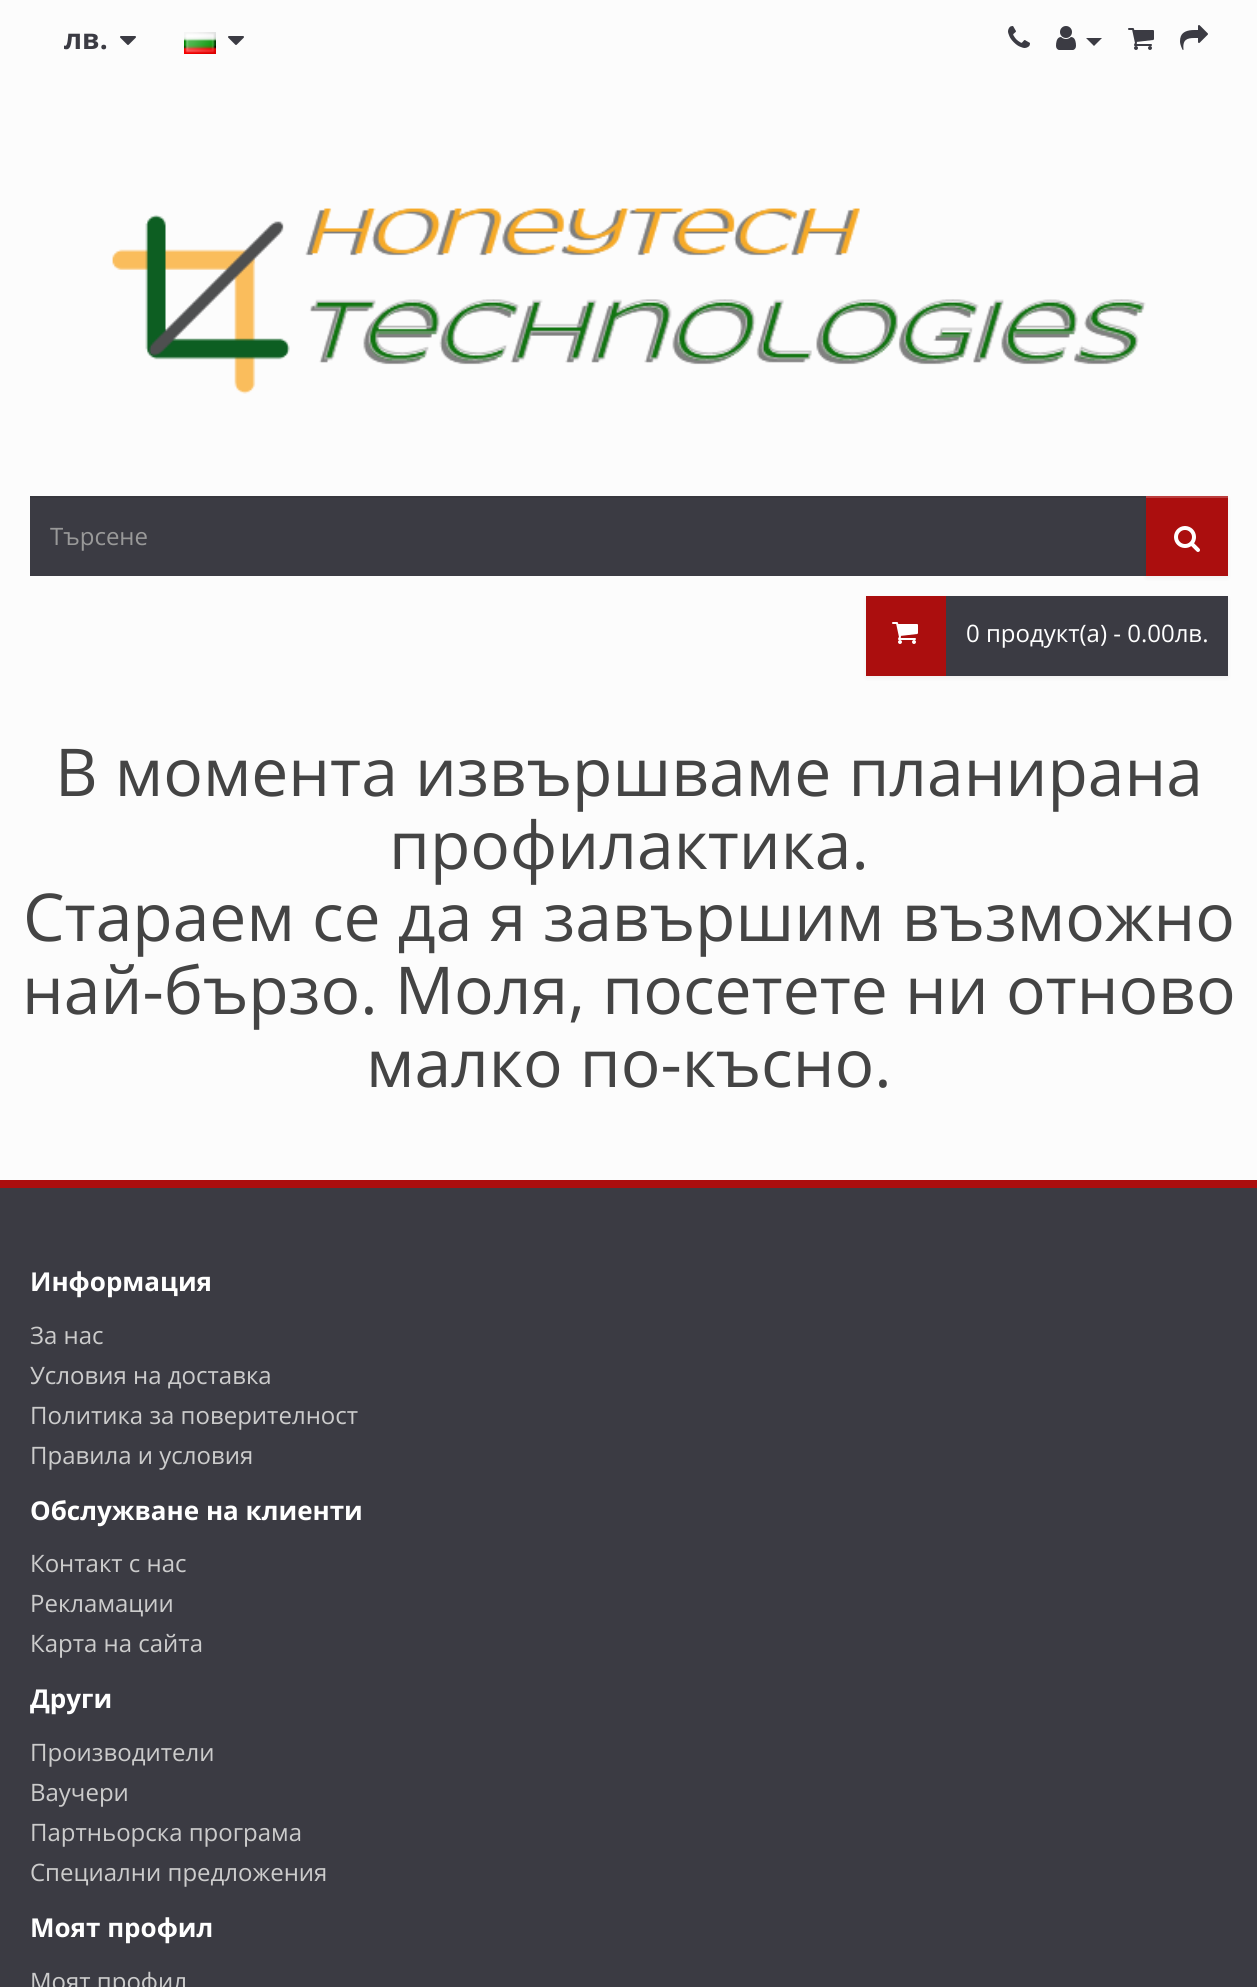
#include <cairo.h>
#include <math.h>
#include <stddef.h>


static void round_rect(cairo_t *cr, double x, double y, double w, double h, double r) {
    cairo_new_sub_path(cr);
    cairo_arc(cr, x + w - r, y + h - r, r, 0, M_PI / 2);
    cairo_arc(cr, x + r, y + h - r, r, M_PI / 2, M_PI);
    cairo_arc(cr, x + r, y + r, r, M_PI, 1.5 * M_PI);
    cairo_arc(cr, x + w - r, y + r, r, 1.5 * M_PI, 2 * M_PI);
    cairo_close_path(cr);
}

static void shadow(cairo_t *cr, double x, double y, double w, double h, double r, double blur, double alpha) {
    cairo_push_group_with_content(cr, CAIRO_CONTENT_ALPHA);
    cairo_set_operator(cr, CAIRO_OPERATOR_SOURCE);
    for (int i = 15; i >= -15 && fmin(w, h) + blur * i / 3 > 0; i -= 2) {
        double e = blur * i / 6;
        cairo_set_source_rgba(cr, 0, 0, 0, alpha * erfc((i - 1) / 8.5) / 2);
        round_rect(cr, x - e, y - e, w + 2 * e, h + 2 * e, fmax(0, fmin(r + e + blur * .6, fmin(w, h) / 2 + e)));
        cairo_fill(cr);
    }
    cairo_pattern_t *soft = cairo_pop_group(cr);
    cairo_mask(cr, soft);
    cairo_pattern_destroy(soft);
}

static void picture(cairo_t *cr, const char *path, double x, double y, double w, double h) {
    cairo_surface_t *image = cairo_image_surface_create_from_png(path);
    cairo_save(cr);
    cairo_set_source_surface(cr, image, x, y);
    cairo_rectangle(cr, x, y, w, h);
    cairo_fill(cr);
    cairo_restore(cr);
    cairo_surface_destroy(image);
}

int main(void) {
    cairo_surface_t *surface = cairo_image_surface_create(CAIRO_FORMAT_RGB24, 1257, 1987);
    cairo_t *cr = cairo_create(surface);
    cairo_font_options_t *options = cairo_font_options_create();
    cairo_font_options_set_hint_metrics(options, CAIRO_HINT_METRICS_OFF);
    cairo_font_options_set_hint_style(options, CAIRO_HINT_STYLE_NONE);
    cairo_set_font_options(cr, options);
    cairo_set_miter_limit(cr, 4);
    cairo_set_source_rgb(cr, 0.988, 0.988, 0.988);
    cairo_paint(cr);
    cairo_select_font_face(cr, "Open Sans", CAIRO_FONT_SLANT_NORMAL, CAIRO_FONT_WEIGHT_BOLD);
    cairo_set_font_size(cr, 28);
    cairo_set_source_rgb(cr, 0.231, 0.231, 0.263);
    cairo_move_to(cr, 64, 49);
    cairo_show_text(cr, "лв.");
    picture(cr, "img1.png", 120, 36, 16, 9);
    picture(cr, "img2.png", 184, 32, 32, 22);
    picture(cr, "img1.png", 228, 36, 16, 9);
    picture(cr, "img3.png", 1008, 26, 22, 22);
    picture(cr, "img4.png", 1056, 26, 20, 24);
    cairo_new_path(cr);
    cairo_move_to(cr, 1086, 38);
    cairo_line_to(cr, 1102, 38);
    cairo_line_to(cr, 1094, 46);
    cairo_close_path(cr);
    cairo_fill(cr);
    picture(cr, "img5.png", 1128, 28, 26, 22);
    picture(cr, "img6.png", 1180, 25, 28, 25);
    picture(cr, "img7.png", 112, 208, 1034, 186);
    cairo_rectangle(cr, 30, 498, 1116, 78);
    cairo_fill(cr);
    cairo_set_source_rgb(cr, 0.216, 0.216, 0.243);
    cairo_rectangle(cr, 30, 496, 1116, 2);
    cairo_fill(cr);
    cairo_select_font_face(cr, "Open Sans", CAIRO_FONT_SLANT_NORMAL, CAIRO_FONT_WEIGHT_NORMAL);
    cairo_set_font_size(cr, 24);
    cairo_set_source_rgb(cr, 0.6, 0.6, 0.6);
    cairo_move_to(cr, 50, 545);
    cairo_show_text(cr, "Търсене");
    cairo_set_source_rgb(cr, 0, 0, 0);
    shadow(cr, 1146, 498, 82, 80, 0, 2, 0.05);
    cairo_set_source_rgb(cr, 0.671, 0.055, 0.055);
    cairo_rectangle(cr, 1146, 498, 82, 78);
    cairo_fill(cr);
    cairo_set_source_rgb(cr, 0.737, 0.243, 0.243);
    cairo_rectangle(cr, 1146, 496, 82, 2);
    cairo_fill(cr);
    picture(cr, "img8.png", 1174, 526, 26, 26);
    cairo_set_source_rgb(cr, 0, 0, 0);
    shadow(cr, 866, 598, 362, 80, 0, 2, 0.05);
    cairo_set_source_rgb(cr, 0.671, 0.055, 0.055);
    cairo_rectangle(cr, 866, 596, 80, 80);
    cairo_fill(cr);
    picture(cr, "img9.png", 892, 622, 26, 22);
    cairo_set_source_rgb(cr, 0.231, 0.231, 0.263);
    cairo_rectangle(cr, 946, 596, 282, 80);
    cairo_fill(cr);
    cairo_set_source_rgb(cr, 1, 1, 1);
    cairo_move_to(cr, 966, 642);
    cairo_show_text(cr, "0 продукт(а) - 0.00лв.");
    cairo_set_font_size(cr, 66);
    cairo_set_source_rgb(cr, 0.267, 0.267, 0.267);
    cairo_move_to(cr, 55, 796);
    cairo_show_text(cr, "В момента извършваме планирана");
    cairo_move_to(cr, 389, 869);
    cairo_show_text(cr, "профилактика.");
    cairo_move_to(cr, 23, 941);
    cairo_show_text(cr, "Стараем се да я завършим възможно");
    cairo_move_to(cr, 22, 1014);
    cairo_show_text(cr, "най-бързо. Моля, посетете ни отново");
    cairo_move_to(cr, 366, 1087);
    cairo_show_text(cr, "малко по-късно.");
    cairo_set_source_rgb(cr, 0.231, 0.231, 0.263);
    cairo_rectangle(cr, 0, 1188, 1257, 799);
    cairo_fill(cr);
    cairo_set_source_rgb(cr, 0.671, 0.055, 0.055);
    cairo_rectangle(cr, 0, 1180, 1257, 8);
    cairo_fill(cr);
    cairo_select_font_face(cr, "Open Sans", CAIRO_FONT_SLANT_NORMAL, CAIRO_FONT_WEIGHT_BOLD);
    cairo_set_font_size(cr, 26);
    cairo_set_source_rgb(cr, 1, 1, 1);
    cairo_move_to(cr, 30, 1291);
    cairo_show_text(cr, "Информация");
    cairo_select_font_face(cr, "Open Sans", CAIRO_FONT_SLANT_NORMAL, CAIRO_FONT_WEIGHT_NORMAL);
    cairo_set_font_size(cr, 24);
    cairo_set_source_rgb(cr, 0.8, 0.8, 0.8);
    cairo_move_to(cr, 30, 1344);
    cairo_show_text(cr, "За нас");
    cairo_move_to(cr, 30, 1384);
    cairo_show_text(cr, "Условия на доставка");
    cairo_move_to(cr, 30, 1424);
    cairo_show_text(cr, "Политика за поверителност");
    cairo_move_to(cr, 30, 1464);
    cairo_show_text(cr, "Правила и условия");
    cairo_select_font_face(cr, "Open Sans", CAIRO_FONT_SLANT_NORMAL, CAIRO_FONT_WEIGHT_BOLD);
    cairo_set_font_size(cr, 26);
    cairo_set_source_rgb(cr, 1, 1, 1);
    cairo_move_to(cr, 30, 1520);
    cairo_show_text(cr, "Обслужване на клиенти");
    cairo_select_font_face(cr, "Open Sans", CAIRO_FONT_SLANT_NORMAL, CAIRO_FONT_WEIGHT_NORMAL);
    cairo_set_font_size(cr, 24);
    cairo_set_source_rgb(cr, 0.8, 0.8, 0.8);
    cairo_move_to(cr, 30, 1572);
    cairo_show_text(cr, "Контакт с нас");
    cairo_move_to(cr, 30, 1612);
    cairo_show_text(cr, "Рекламации");
    cairo_move_to(cr, 30, 1652);
    cairo_show_text(cr, "Карта на сайта");
    cairo_select_font_face(cr, "Open Sans", CAIRO_FONT_SLANT_NORMAL, CAIRO_FONT_WEIGHT_BOLD);
    cairo_set_font_size(cr, 26);
    cairo_set_source_rgb(cr, 1, 1, 1);
    cairo_move_to(cr, 30, 1708);
    cairo_show_text(cr, "Други");
    cairo_select_font_face(cr, "Open Sans", CAIRO_FONT_SLANT_NORMAL, CAIRO_FONT_WEIGHT_NORMAL);
    cairo_set_font_size(cr, 24);
    cairo_set_source_rgb(cr, 0.8, 0.8, 0.8);
    cairo_move_to(cr, 30, 1761);
    cairo_show_text(cr, "Производители");
    cairo_move_to(cr, 30, 1801);
    cairo_show_text(cr, "Ваучери");
    cairo_move_to(cr, 30, 1841);
    cairo_show_text(cr, "Партньорска програма");
    cairo_move_to(cr, 30, 1881);
    cairo_show_text(cr, "Специални предложения");
    cairo_select_font_face(cr, "Open Sans", CAIRO_FONT_SLANT_NORMAL, CAIRO_FONT_WEIGHT_BOLD);
    cairo_set_font_size(cr, 26);
    cairo_set_source_rgb(cr, 1, 1, 1);
    cairo_move_to(cr, 30, 1937);
    cairo_show_text(cr, "Моят профил");
    cairo_select_font_face(cr, "Open Sans", CAIRO_FONT_SLANT_NORMAL, CAIRO_FONT_WEIGHT_NORMAL);
    cairo_set_font_size(cr, 24);
    cairo_set_source_rgb(cr, 0.8, 0.8, 0.8);
    cairo_move_to(cr, 30, 1990);
    cairo_show_text(cr, "Моят профил");
    cairo_surface_write_to_png(surface, "page.png");
    cairo_font_options_destroy(options);
    cairo_destroy(cr);
    cairo_surface_destroy(surface);
    return 0;
}
